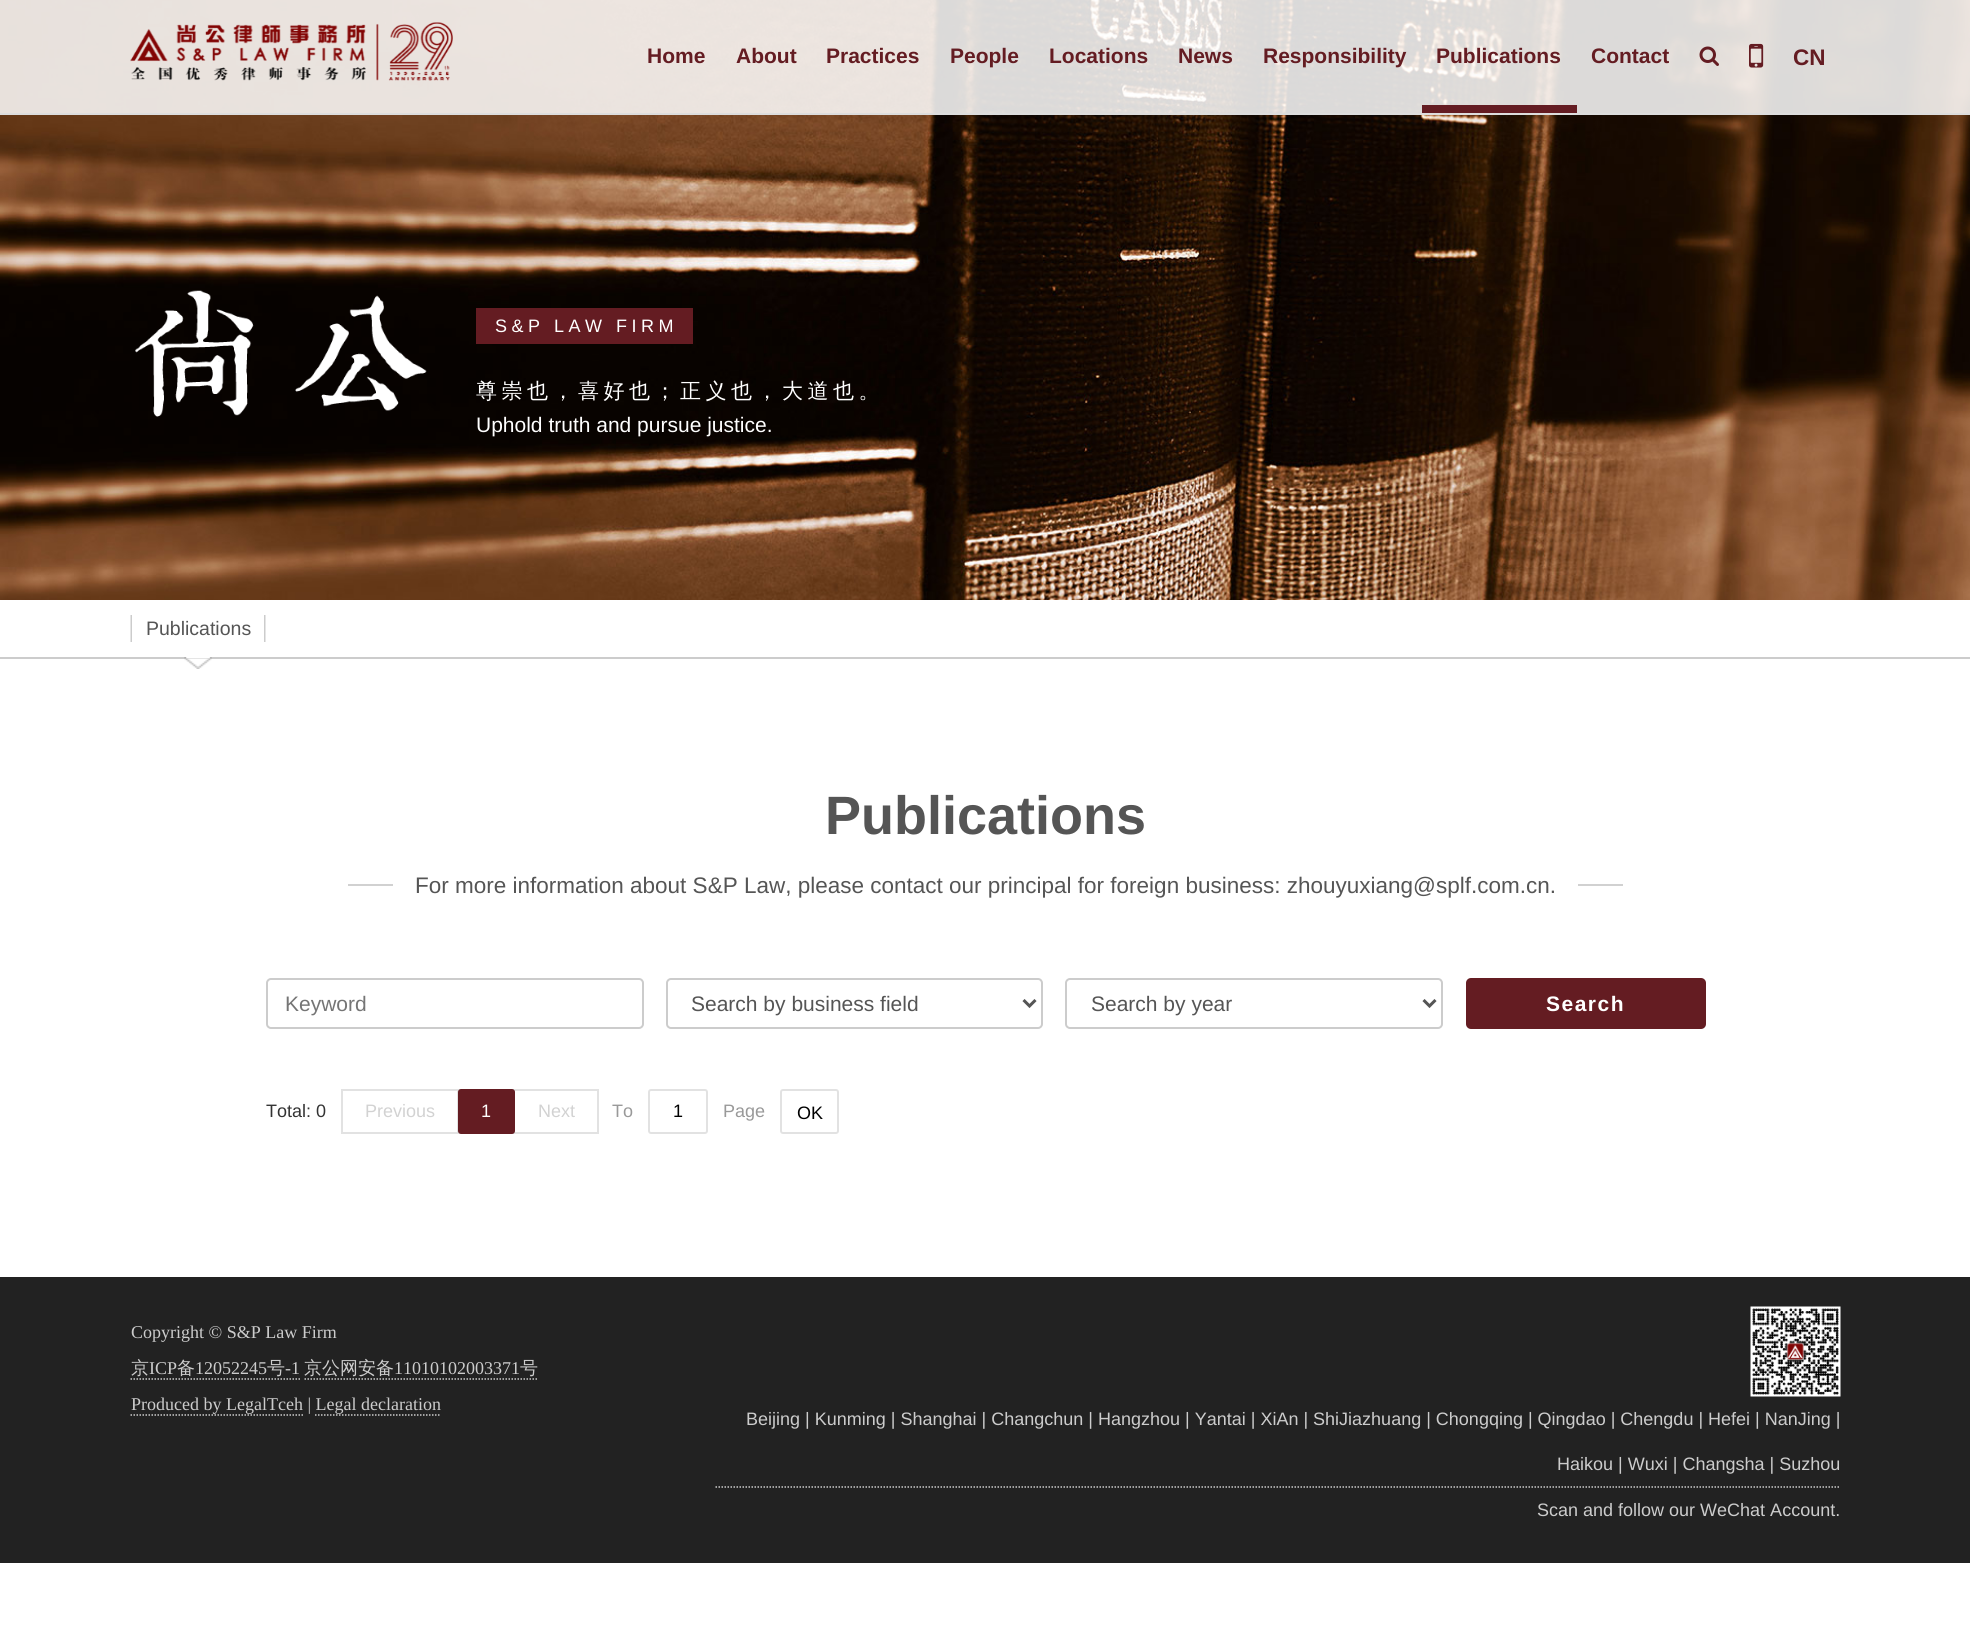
#include <cairo.h>
#include <math.h>
#include <stddef.h>


static void spaced_text(cairo_t *cr, double x, double y, const char *s, double letter, double word) {
    cairo_move_to(cr, x, y);
    while (*s) {
        char ch[5] = {0};
        int n = 0;
        do ch[n++] = *s++; while ((*s & 0xC0) == 0x80);
        cairo_show_text(cr, ch);
        cairo_rel_move_to(cr, letter + word * (*ch == ' '), 0);
    }
}

static void round_rect(cairo_t *cr, double x, double y, double w, double h, double r) {
    cairo_new_sub_path(cr);
    cairo_arc(cr, x + w - r, y + h - r, r, 0, M_PI / 2);
    cairo_arc(cr, x + r, y + h - r, r, M_PI / 2, M_PI);
    cairo_arc(cr, x + r, y + r, r, M_PI, 1.5 * M_PI);
    cairo_arc(cr, x + w - r, y + r, r, 1.5 * M_PI, 2 * M_PI);
    cairo_close_path(cr);
}

static void picture(cairo_t *cr, const char *path, double x, double y, double w, double h) {
    cairo_surface_t *image = cairo_image_surface_create_from_png(path);
    cairo_save(cr);
    cairo_set_source_surface(cr, image, x, y);
    cairo_rectangle(cr, x, y, w, h);
    cairo_fill(cr);
    cairo_restore(cr);
    cairo_surface_destroy(image);
}

int main(void) {
    cairo_surface_t *surface = cairo_image_surface_create(CAIRO_FORMAT_RGB24, 1970, 1644);
    cairo_t *cr = cairo_create(surface);
    cairo_font_options_t *options = cairo_font_options_create();
    cairo_font_options_set_hint_metrics(options, CAIRO_HINT_METRICS_OFF);
    cairo_font_options_set_hint_style(options, CAIRO_HINT_STYLE_NONE);
    cairo_set_font_options(cr, options);
    cairo_set_miter_limit(cr, 4);
    cairo_set_source_rgb(cr, 1, 1, 1);
    cairo_paint(cr);
    picture(cr, "img4.png", 0, 0, 1970, 600);
    cairo_set_source_rgba(cr, 1, 1, 1, 0.85);
    cairo_rectangle(cr, 0, 0, 1970, 113);
    cairo_fill(cr);
    cairo_set_source_rgb(cr, 0.867, 0.867, 0.867);
    cairo_rectangle(cr, 0, 113, 1970, 2);
    cairo_fill(cr);
    picture(cr, "img1.png", 130, 22, 323, 59);
    cairo_select_font_face(cr, "Liberation Sans", CAIRO_FONT_SLANT_NORMAL, CAIRO_FONT_WEIGHT_BOLD);
    cairo_set_font_size(cr, 21);
    cairo_set_source_rgb(cr, 0.392, 0.11, 0.133);
    cairo_move_to(cr, 647, 63);
    cairo_show_text(cr, "Home");
    cairo_move_to(cr, 736, 63);
    cairo_show_text(cr, "About");
    cairo_move_to(cr, 826, 63);
    cairo_show_text(cr, "Practices");
    cairo_move_to(cr, 950, 63);
    cairo_show_text(cr, "People");
    cairo_move_to(cr, 1049, 63);
    cairo_show_text(cr, "Locations");
    cairo_move_to(cr, 1178, 63);
    cairo_show_text(cr, "News");
    cairo_move_to(cr, 1263, 63);
    cairo_show_text(cr, "Responsibility");
    cairo_rectangle(cr, 1422, 105, 155, 8);
    cairo_fill(cr);
    cairo_move_to(cr, 1436, 63);
    cairo_show_text(cr, "Publications");
    cairo_move_to(cr, 1591, 63);
    cairo_show_text(cr, "Contact");
    picture(cr, "img2.png", 1699, 46, 20, 20);
    picture(cr, "img3.png", 1749, 43, 15, 25);
    cairo_set_font_size(cr, 22.5);
    cairo_move_to(cr, 1793, 65);
    cairo_show_text(cr, "CN");
    picture(cr, "img5.png", 135, 290, 292, 127);
    cairo_rectangle(cr, 476, 308, 217, 36);
    cairo_fill(cr);
    cairo_select_font_face(cr, "Liberation Sans", CAIRO_FONT_SLANT_NORMAL, CAIRO_FONT_WEIGHT_NORMAL);
    cairo_set_font_size(cr, 18);
    cairo_set_source_rgb(cr, 1, 1, 1);
    spaced_text(cr, 495, 332, "S&P LAW FIRM", 4.5, 0);
    cairo_select_font_face(cr, "WenQuanYi Zen Hei Medium", CAIRO_FONT_SLANT_NORMAL, CAIRO_FONT_WEIGHT_NORMAL);
    cairo_set_font_size(cr, 21);
    spaced_text(cr, 476, 398, "尊崇也，喜好也；正义也，大道也。", 4.5, 0);
    cairo_select_font_face(cr, "Liberation Sans", CAIRO_FONT_SLANT_NORMAL, CAIRO_FONT_WEIGHT_NORMAL);
    cairo_move_to(cr, 476, 432);
    cairo_show_text(cr, "Uphold truth and pursue justice.");
    cairo_set_source_rgb(cr, 0.8, 0.8, 0.8);
    cairo_rectangle(cr, 0, 657, 1970, 2);
    cairo_fill(cr);
    picture(cr, "img6.png", 130, 615, 2, 27);
    picture(cr, "img7.png", 264, 615, 2, 27);
    cairo_set_font_size(cr, 19.5);
    cairo_set_source_rgb(cr, 0.333, 0.333, 0.333);
    cairo_move_to(cr, 146, 635);
    cairo_show_text(cr, "Publications");
    picture(cr, "img8.png", 184, 657, 28, 12);
    cairo_select_font_face(cr, "Liberation Sans", CAIRO_FONT_SLANT_NORMAL, CAIRO_FONT_WEIGHT_BOLD);
    cairo_set_font_size(cr, 54);
    cairo_move_to(cr, 825, 834);
    cairo_show_text(cr, "Publications");
    cairo_set_source_rgb(cr, 0.82, 0.82, 0.82);
    cairo_rectangle(cr, 348, 884, 45, 2);
    cairo_fill(cr);
    cairo_select_font_face(cr, "Liberation Sans", CAIRO_FONT_SLANT_NORMAL, CAIRO_FONT_WEIGHT_NORMAL);
    cairo_set_font_size(cr, 22.5);
    cairo_set_source_rgb(cr, 0.333, 0.333, 0.333);
    cairo_move_to(cr, 415, 893);
    cairo_show_text(cr, "For more information about S&P Law, please contact our principal for foreign business: zhouyuxiang@splf.com.cn.");
    cairo_set_source_rgb(cr, 0.82, 0.82, 0.82);
    cairo_rectangle(cr, 1578, 884, 45, 2);
    cairo_fill(cr);
    round_rect(cr, 267, 979, 376, 49, 4);
    cairo_set_source_rgb(cr, 0.8, 0.8, 0.8);
    cairo_stroke(cr);
    cairo_set_font_size(cr, 21);
    cairo_set_source_rgb(cr, 0.459, 0.459, 0.459);
    cairo_move_to(cr, 285, 1011);
    cairo_show_text(cr, "Keyword");
    round_rect(cr, 667, 979, 375, 49, 4);
    cairo_set_source_rgb(cr, 0.8, 0.8, 0.8);
    cairo_stroke(cr);
    cairo_new_path(cr);
    cairo_move_to(cr, 1023.5, 1000);
    cairo_line_to(cr, 1029.5, 1006);
    cairo_line_to(cr, 1035.5, 1000);
    cairo_set_source_rgb(cr, 0.333, 0.333, 0.333);
    cairo_set_line_width(cr, 3);
    cairo_stroke(cr);
    cairo_move_to(cr, 691, 1011);
    cairo_show_text(cr, "Search by business field");
    round_rect(cr, 1066, 979, 376, 49, 4);
    cairo_set_source_rgb(cr, 0.8, 0.8, 0.8);
    cairo_set_line_width(cr, 2);
    cairo_stroke(cr);
    cairo_new_path(cr);
    cairo_move_to(cr, 1423.5, 1000);
    cairo_line_to(cr, 1429.5, 1006);
    cairo_line_to(cr, 1435.5, 1000);
    cairo_set_source_rgb(cr, 0.333, 0.333, 0.333);
    cairo_set_line_width(cr, 3);
    cairo_stroke(cr);
    cairo_move_to(cr, 1091, 1011);
    cairo_show_text(cr, "Search by year");
    cairo_set_source_rgb(cr, 0.392, 0.11, 0.133);
    round_rect(cr, 1466, 978, 240, 51, 5);
    cairo_fill(cr);
    cairo_select_font_face(cr, "Liberation Sans", CAIRO_FONT_SLANT_NORMAL, CAIRO_FONT_WEIGHT_BOLD);
    cairo_set_source_rgb(cr, 1, 1, 1);
    spaced_text(cr, 1546, 1011, "Search", 1.5, 0);
    cairo_select_font_face(cr, "Liberation Sans", CAIRO_FONT_SLANT_NORMAL, CAIRO_FONT_WEIGHT_NORMAL);
    cairo_set_font_size(cr, 18);
    cairo_set_source_rgb(cr, 0.2, 0.2, 0.2);
    cairo_move_to(cr, 266, 1117);
    cairo_show_text(cr, "Total: 0");
    cairo_rectangle(cr, 342, 1090, 116, 43);
    cairo_set_source_rgb(cr, 0.886, 0.886, 0.886);
    cairo_set_line_width(cr, 2);
    cairo_stroke(cr);
    cairo_set_source_rgb(cr, 0.824, 0.824, 0.824);
    cairo_move_to(cr, 365, 1117);
    cairo_show_text(cr, "Previous");
    cairo_rectangle(cr, 514, 1090, 84, 43);
    cairo_set_source_rgb(cr, 0.886, 0.886, 0.886);
    cairo_stroke(cr);
    cairo_rectangle(cr, 459, 1090, 55, 43);
    cairo_stroke(cr);
    cairo_set_source_rgb(cr, 0.392, 0.11, 0.133);
    round_rect(cr, 458, 1089, 57, 45, 3);
    cairo_fill(cr);
    cairo_set_source_rgb(cr, 1, 1, 1);
    cairo_move_to(cr, 481, 1117);
    cairo_show_text(cr, "1");
    cairo_set_source_rgb(cr, 0.824, 0.824, 0.824);
    cairo_move_to(cr, 538, 1117);
    cairo_show_text(cr, "Next");
    cairo_set_source_rgb(cr, 0.6, 0.6, 0.6);
    cairo_move_to(cr, 612, 1117);
    cairo_show_text(cr, "To");
    round_rect(cr, 649, 1090, 58, 43, 2);
    cairo_set_source_rgb(cr, 0.886, 0.886, 0.886);
    cairo_stroke(cr);
    cairo_set_source_rgb(cr, 0, 0, 0);
    cairo_move_to(cr, 673, 1117);
    cairo_show_text(cr, "1");
    cairo_set_source_rgb(cr, 0.6, 0.6, 0.6);
    cairo_move_to(cr, 723, 1117);
    cairo_show_text(cr, "Page");
    round_rect(cr, 781, 1090, 57, 43, 2);
    cairo_set_source_rgb(cr, 0.886, 0.886, 0.886);
    cairo_stroke(cr);
    cairo_set_source_rgb(cr, 0, 0, 0);
    cairo_move_to(cr, 797, 1119);
    cairo_show_text(cr, "OK");
    cairo_set_source_rgb(cr, 0.133, 0.133, 0.133);
    cairo_rectangle(cr, 0, 1277, 1970, 286);
    cairo_fill(cr);
    cairo_select_font_face(cr, "Liberation Serif", CAIRO_FONT_SLANT_NORMAL, CAIRO_FONT_WEIGHT_NORMAL);
    cairo_set_source_rgb(cr, 0.8, 0.8, 0.8);
    cairo_move_to(cr, 131, 1338);
    cairo_show_text(cr, "Copyright © S&P Law Firm");
    cairo_select_font_face(cr, "WenQuanYi Zen Hei Medium", CAIRO_FONT_SLANT_NORMAL, CAIRO_FONT_WEIGHT_NORMAL);
    cairo_move_to(cr, 131, 1374);
    cairo_show_text(cr, "京");
    cairo_select_font_face(cr, "Liberation Serif", CAIRO_FONT_SLANT_NORMAL, CAIRO_FONT_WEIGHT_NORMAL);
    cairo_move_to(cr, 149, 1374);
    cairo_show_text(cr, "ICP");
    cairo_new_path(cr);
    cairo_move_to(cr, 130.5, 1379);
    cairo_line_to(cr, 300, 1379);
    cairo_set_line_width(cr, 1.5);
    cairo_set_dash(cr, (double[]){1.5, 1.5}, 2, 0);
    cairo_stroke(cr);
    cairo_select_font_face(cr, "WenQuanYi Zen Hei Medium", CAIRO_FONT_SLANT_NORMAL, CAIRO_FONT_WEIGHT_NORMAL);
    cairo_move_to(cr, 177, 1374);
    cairo_show_text(cr, "备");
    cairo_select_font_face(cr, "Liberation Serif", CAIRO_FONT_SLANT_NORMAL, CAIRO_FONT_WEIGHT_NORMAL);
    cairo_move_to(cr, 195, 1374);
    cairo_show_text(cr, "12052245");
    cairo_select_font_face(cr, "WenQuanYi Zen Hei Medium", CAIRO_FONT_SLANT_NORMAL, CAIRO_FONT_WEIGHT_NORMAL);
    cairo_move_to(cr, 267, 1374);
    cairo_show_text(cr, "号");
    cairo_select_font_face(cr, "Liberation Serif", CAIRO_FONT_SLANT_NORMAL, CAIRO_FONT_WEIGHT_NORMAL);
    cairo_move_to(cr, 285, 1374);
    cairo_show_text(cr, "-1");
    cairo_select_font_face(cr, "WenQuanYi Zen Hei Medium", CAIRO_FONT_SLANT_NORMAL, CAIRO_FONT_WEIGHT_NORMAL);
    cairo_move_to(cr, 304, 1374);
    cairo_show_text(cr, "京公网安备");
    cairo_select_font_face(cr, "Liberation Serif", CAIRO_FONT_SLANT_NORMAL, CAIRO_FONT_WEIGHT_NORMAL);
    cairo_move_to(cr, 394, 1374);
    cairo_show_text(cr, "11010102003371");
    cairo_new_path(cr);
    cairo_move_to(cr, 304.5, 1379);
    cairo_line_to(cr, 538.5, 1379);
    cairo_stroke(cr);
    cairo_select_font_face(cr, "WenQuanYi Zen Hei Medium", CAIRO_FONT_SLANT_NORMAL, CAIRO_FONT_WEIGHT_NORMAL);
    cairo_move_to(cr, 520, 1374);
    cairo_show_text(cr, "号");
    cairo_select_font_face(cr, "Liberation Serif", CAIRO_FONT_SLANT_NORMAL, CAIRO_FONT_WEIGHT_NORMAL);
    cairo_move_to(cr, 131, 1410);
    cairo_show_text(cr, "Produced by LegalTceh | Legal declaration");
    cairo_new_path(cr);
    cairo_move_to(cr, 130.5, 1415);
    cairo_line_to(cr, 303, 1415);
    cairo_stroke(cr);
    cairo_new_path(cr);
    cairo_move_to(cr, 315, 1415);
    cairo_line_to(cr, 441, 1415);
    cairo_stroke(cr);
    picture(cr, "img9.png", 1750, 1306, 91, 91);
    cairo_new_path(cr);
    cairo_move_to(cr, 715.5, 1487);
    cairo_line_to(cr, 1840.5, 1487);
    cairo_stroke(cr);
    cairo_select_font_face(cr, "Liberation Sans", CAIRO_FONT_SLANT_NORMAL, CAIRO_FONT_WEIGHT_NORMAL);
    cairo_move_to(cr, 746, 1425);
    cairo_show_text(cr, "Beijing | Kunming | Shanghai | Changchun | Hangzhou | Yantai | XiAn | ShiJiazhuang | Chongqing | Qingdao | Chengdu | Hefei | NanJing |");
    cairo_move_to(cr, 1557, 1470);
    cairo_show_text(cr, "Haikou | Wuxi | Changsha | Suzhou");
    cairo_move_to(cr, 1537, 1516);
    cairo_show_text(cr, "Scan and follow our WeChat Account.");
    cairo_surface_write_to_png(surface, "page.png");
    cairo_font_options_destroy(options);
    cairo_destroy(cr);
    cairo_surface_destroy(surface);
    return 0;
}
